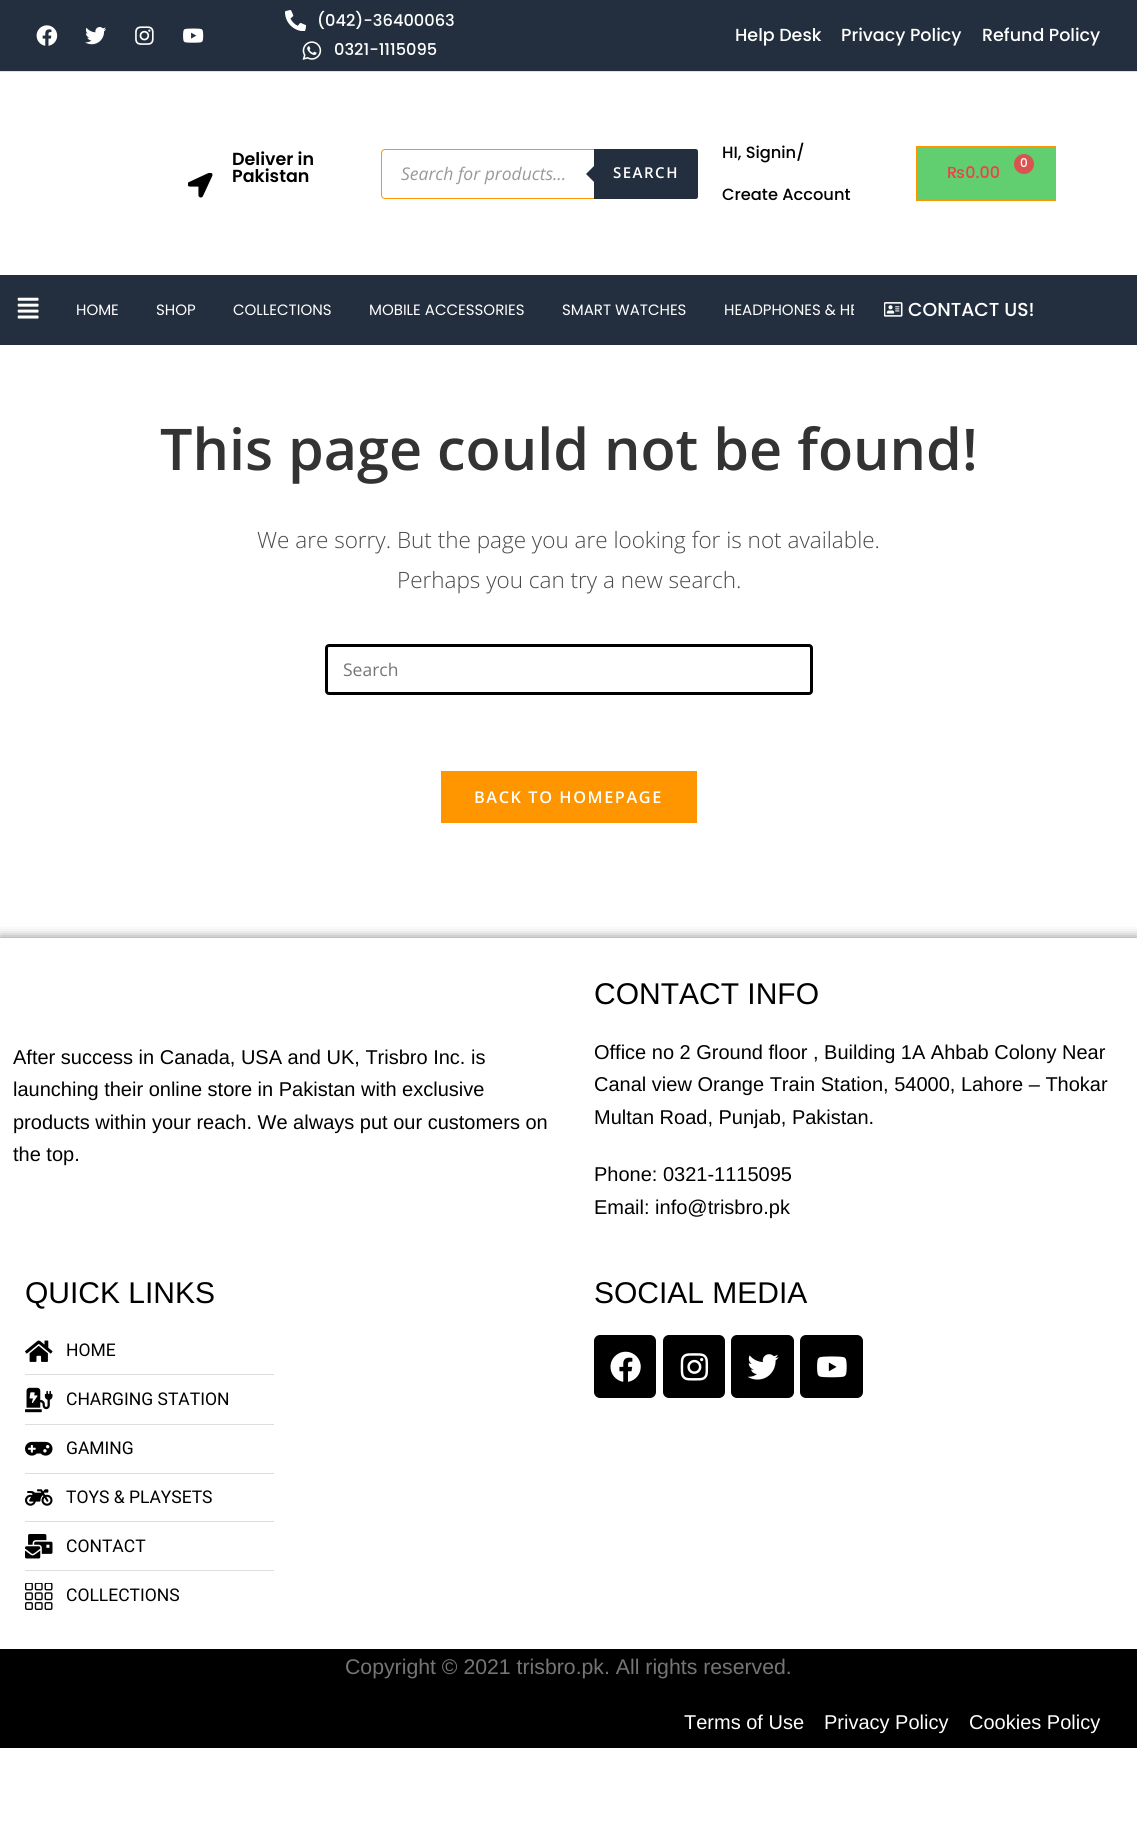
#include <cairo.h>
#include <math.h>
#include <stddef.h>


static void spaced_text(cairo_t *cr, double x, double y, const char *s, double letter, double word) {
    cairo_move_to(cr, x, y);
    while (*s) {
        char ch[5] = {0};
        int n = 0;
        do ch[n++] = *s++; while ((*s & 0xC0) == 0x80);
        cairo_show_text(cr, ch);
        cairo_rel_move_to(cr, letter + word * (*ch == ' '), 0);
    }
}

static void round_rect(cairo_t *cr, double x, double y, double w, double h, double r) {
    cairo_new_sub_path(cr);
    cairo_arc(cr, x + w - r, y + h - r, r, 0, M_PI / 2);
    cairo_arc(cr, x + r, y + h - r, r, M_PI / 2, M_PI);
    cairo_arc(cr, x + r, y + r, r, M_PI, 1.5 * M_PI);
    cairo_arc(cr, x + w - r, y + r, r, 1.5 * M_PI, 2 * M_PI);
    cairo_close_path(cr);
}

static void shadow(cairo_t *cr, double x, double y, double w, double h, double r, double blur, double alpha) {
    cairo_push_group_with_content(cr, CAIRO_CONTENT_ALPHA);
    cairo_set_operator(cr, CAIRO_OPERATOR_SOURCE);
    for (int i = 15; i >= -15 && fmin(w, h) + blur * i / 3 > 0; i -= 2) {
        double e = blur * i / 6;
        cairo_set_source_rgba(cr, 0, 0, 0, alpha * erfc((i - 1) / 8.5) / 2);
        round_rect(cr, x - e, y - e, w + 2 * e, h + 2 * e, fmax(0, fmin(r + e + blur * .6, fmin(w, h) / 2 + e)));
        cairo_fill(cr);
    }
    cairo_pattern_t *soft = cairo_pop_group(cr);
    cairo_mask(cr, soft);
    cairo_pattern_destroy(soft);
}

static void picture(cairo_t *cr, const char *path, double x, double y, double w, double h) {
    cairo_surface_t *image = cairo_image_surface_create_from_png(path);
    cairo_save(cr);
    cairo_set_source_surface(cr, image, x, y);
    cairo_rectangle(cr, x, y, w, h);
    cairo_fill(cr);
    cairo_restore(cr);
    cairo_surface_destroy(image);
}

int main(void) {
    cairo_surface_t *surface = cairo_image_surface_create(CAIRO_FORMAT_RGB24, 1137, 1846);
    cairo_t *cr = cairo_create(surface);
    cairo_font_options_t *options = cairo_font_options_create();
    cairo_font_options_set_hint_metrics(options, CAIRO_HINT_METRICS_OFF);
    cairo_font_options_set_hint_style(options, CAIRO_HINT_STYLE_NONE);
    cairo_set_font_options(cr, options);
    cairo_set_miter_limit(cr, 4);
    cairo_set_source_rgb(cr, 1, 1, 1);
    cairo_paint(cr);
    cairo_set_source_rgb(cr, 0.137, 0.184, 0.243);
    cairo_rectangle(cr, 0, 0, 1137, 71);
    cairo_fill(cr);
    cairo_set_source_rgb(cr, 0.878, 0.878, 0.878);
    cairo_rectangle(cr, 0, 71, 1137, 1);
    cairo_fill(cr);
    picture(cr, "img1.png", 36, 25, 22, 21);
    picture(cr, "img2.png", 85, 27, 21, 18);
    picture(cr, "img3.png", 135, 26, 19, 19);
    picture(cr, "img4.png", 183, 28, 21, 15);
    picture(cr, "img5.png", 285, 10, 21, 21);
    cairo_select_font_face(cr, "Poppins Medium", CAIRO_FONT_SLANT_NORMAL, CAIRO_FONT_WEIGHT_NORMAL);
    cairo_set_font_size(cr, 16.25);
    cairo_set_source_rgb(cr, 1, 1, 1);
    cairo_move_to(cr, 317, 26);
    cairo_show_text(cr, "(042)-36400063");
    picture(cr, "img6.png", 302, 41, 20, 19);
    cairo_move_to(cr, 334, 55);
    cairo_show_text(cr, "0321-1115095");
    cairo_set_font_size(cr, 17.5);
    cairo_move_to(cr, 735, 41);
    cairo_show_text(cr, "Help Desk");
    cairo_move_to(cr, 841, 41);
    cairo_show_text(cr, "Privacy Policy");
    cairo_move_to(cr, 982, 41);
    cairo_show_text(cr, "Refund Policy");
    cairo_select_font_face(cr, "Poppins SemiBold", CAIRO_FONT_SLANT_NORMAL, CAIRO_FONT_WEIGHT_NORMAL);
    cairo_set_source_rgb(cr, 0, 0, 0);
    cairo_move_to(cr, 232, 165);
    cairo_show_text(cr, "Deliver in");
    cairo_move_to(cr, 232, 182);
    cairo_show_text(cr, "Pakistan");
    picture(cr, "img7.png", 188, 173, 25, 25);
    round_rect(cr, 381.5, 149.5, 316, 49, 3.5);
    cairo_set_source_rgb(cr, 1, 0.588, 0);
    cairo_set_line_width(cr, 1);
    cairo_stroke(cr);
    cairo_select_font_face(cr, "Open Sans", CAIRO_FONT_SLANT_ITALIC, CAIRO_FONT_WEIGHT_NORMAL);
    cairo_set_source_rgb(cr, 0.6, 0.6, 0.6);
    cairo_move_to(cr, 401, 180);
    cairo_show_text(cr, "Search for products...");
    cairo_set_source_rgb(cr, 0.137, 0.184, 0.243);
    cairo_new_path(cr);
    cairo_move_to(cr, 594, 149);
    cairo_line_to(cr, 695.5, 149);
    cairo_curve_to(cr, 697, 149, 698, 150, 698, 151.5);
    cairo_line_to(cr, 698, 196.5);
    cairo_curve_to(cr, 698, 198, 697, 199, 695.5, 199);
    cairo_line_to(cr, 594, 199);
    cairo_close_path(cr);
    cairo_fill(cr);
    cairo_new_path(cr);
    cairo_move_to(cr, 596, 164);
    cairo_line_to(cr, 596, 184);
    cairo_line_to(cr, 586, 174);
    cairo_close_path(cr);
    cairo_fill(cr);
    cairo_select_font_face(cr, "Open Sans SemiBold", CAIRO_FONT_SLANT_NORMAL, CAIRO_FONT_WEIGHT_NORMAL);
    cairo_set_font_size(cr, 15);
    cairo_set_source_rgb(cr, 1, 1, 1);
    spaced_text(cr, 613, 178, "SEARCH", 1.5, 0);
    cairo_select_font_face(cr, "Poppins Medium", CAIRO_FONT_SLANT_NORMAL, CAIRO_FONT_WEIGHT_NORMAL);
    cairo_set_font_size(cr, 16.25);
    cairo_set_source_rgb(cr, 0, 0, 0);
    cairo_move_to(cr, 722, 158);
    cairo_show_text(cr, "HI, Signin/");
    cairo_move_to(cr, 722, 200);
    cairo_show_text(cr, "Create Account");
    cairo_set_source_rgb(cr, 0.38, 0.808, 0.439);
    cairo_rectangle(cr, 916.5, 146.5, 139, 54);
    cairo_fill_preserve(cr);
    cairo_set_source_rgb(cr, 1, 0.588, 0);
    cairo_stroke(cr);
    cairo_set_source_rgb(cr, 0.851, 0.325, 0.31);
    cairo_arc(cr, 1024, 164, 10, 0, 2 * M_PI);
    cairo_fill(cr);
    cairo_set_font_size(cr, 12);
    cairo_set_source_rgb(cr, 1, 1, 1);
    cairo_move_to(cr, 1020, 167);
    cairo_show_text(cr, "0");
    cairo_set_font_size(cr, 16);
    cairo_set_source_rgb(cr, 0.937, 0.247, 0.286);
    cairo_move_to(cr, 947, 178);
    cairo_show_text(cr, "₨0.00");
    cairo_set_source_rgb(cr, 0.137, 0.184, 0.243);
    cairo_rectangle(cr, 0, 275, 1137, 70);
    cairo_fill(cr);
    picture(cr, "img8.png", 17, 297, 22, 22);
    cairo_select_font_face(cr, "Poppins", CAIRO_FONT_SLANT_NORMAL, CAIRO_FONT_WEIGHT_NORMAL);
    cairo_set_font_size(cr, 15);
    cairo_set_source_rgb(cr, 1, 1, 1);
    cairo_move_to(cr, 76, 315);
    cairo_show_text(cr, "HOME");
    cairo_move_to(cr, 156, 315);
    cairo_show_text(cr, "SHOP");
    cairo_move_to(cr, 233, 315);
    cairo_show_text(cr, "COLLECTIONS");
    cairo_move_to(cr, 369, 315);
    cairo_show_text(cr, "MOBILE ACCESSORIES");
    cairo_move_to(cr, 562, 315);
    cairo_show_text(cr, "SMART WATCHES");
    cairo_save(cr);
    cairo_rectangle(cr, 58, 275, 796, 70);
    cairo_clip(cr);
    cairo_move_to(cr, 724, 315);
    cairo_show_text(cr, "HEADPHONES & HE");
    cairo_restore(cr);
    picture(cr, "img9.png", 884, 302, 19, 15);
    cairo_select_font_face(cr, "Poppins Medium", CAIRO_FONT_SLANT_NORMAL, CAIRO_FONT_WEIGHT_NORMAL);
    cairo_set_font_size(cr, 18.75);
    cairo_move_to(cr, 908, 316);
    cairo_show_text(cr, "CONTACT US!");
    cairo_select_font_face(cr, "Open Sans SemiBold", CAIRO_FONT_SLANT_NORMAL, CAIRO_FONT_WEIGHT_NORMAL);
    cairo_set_font_size(cr, 57.5);
    cairo_set_source_rgb(cr, 0.2, 0.2, 0.2);
    cairo_move_to(cr, 160, 470);
    cairo_show_text(cr, "This page could not be found!");
    cairo_select_font_face(cr, "Open Sans Light", CAIRO_FONT_SLANT_NORMAL, CAIRO_FONT_WEIGHT_NORMAL);
    cairo_set_font_size(cr, 22.5);
    cairo_set_source_rgb(cr, 0.29, 0.29, 0.29);
    cairo_move_to(cr, 257, 548);
    cairo_show_text(cr, "We are sorry. But the page you are looking for is not available.");
    cairo_move_to(cr, 397, 588);
    cairo_show_text(cr, "Perhaps you can try a new search.");
    round_rect(cr, 326.5, 645.5, 485, 48, 2.5);
    cairo_set_source_rgb(cr, 0, 0, 0);
    cairo_set_line_width(cr, 3);
    cairo_stroke(cr);
    cairo_select_font_face(cr, "Open Sans", CAIRO_FONT_SLANT_NORMAL, CAIRO_FONT_WEIGHT_NORMAL);
    cairo_set_font_size(cr, 17.5);
    cairo_set_source_rgb(cr, 0.459, 0.459, 0.459);
    cairo_move_to(cr, 343, 676);
    cairo_show_text(cr, "Search");
    cairo_set_source_rgb(cr, 1, 0.588, 0);
    cairo_rectangle(cr, 441, 771, 256, 52);
    cairo_fill(cr);
    cairo_select_font_face(cr, "Open Sans SemiBold", CAIRO_FONT_SLANT_NORMAL, CAIRO_FONT_WEIGHT_NORMAL);
    cairo_set_font_size(cr, 16.25);
    cairo_set_source_rgb(cr, 1, 1, 1);
    spaced_text(cr, 474, 803, "BACK TO HOMEPAGE", 1.6, 0);
    cairo_set_source_rgb(cr, 0, 0, 0);
    shadow(cr, 0, 938, 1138, 711, 0, 6, 0.5);
    cairo_set_source_rgb(cr, 1, 1, 1);
    cairo_rectangle(cr, 0, 938, 1137, 711);
    cairo_fill(cr);
    cairo_select_font_face(cr, "Liberation Sans", CAIRO_FONT_SLANT_NORMAL, CAIRO_FONT_WEIGHT_NORMAL);
    cairo_set_font_size(cr, 20);
    cairo_set_source_rgb(cr, 0, 0, 0);
    cairo_move_to(cr, 13, 1064);
    cairo_show_text(cr, "After success in Canada, USA and UK, Trisbro Inc. is");
    cairo_move_to(cr, 13, 1096);
    cairo_show_text(cr, "launching their online store in Pakistan with exclusive");
    cairo_move_to(cr, 13, 1129);
    cairo_show_text(cr, "products within your reach. We always put our customers on");
    cairo_move_to(cr, 13, 1161);
    cairo_show_text(cr, "the top.");
    cairo_set_font_size(cr, 30);
    cairo_move_to(cr, 594, 1004);
    cairo_show_text(cr, "CONTACT INFO");
    cairo_set_font_size(cr, 20);
    cairo_move_to(cr, 594, 1059);
    cairo_show_text(cr, "Office no 2 Ground floor , Building 1A Ahbab Colony Near");
    cairo_move_to(cr, 594, 1091);
    cairo_show_text(cr, "Canal view Orange Train Station, 54000, Lahore – Thokar");
    cairo_move_to(cr, 594, 1124);
    cairo_show_text(cr, "Multan Road, Punjab, Pakistan.");
    cairo_move_to(cr, 594, 1181);
    cairo_show_text(cr, "Phone: 0321-1115095");
    cairo_move_to(cr, 594, 1214);
    cairo_show_text(cr, "Email: info@trisbro.pk");
    cairo_set_font_size(cr, 30);
    cairo_move_to(cr, 25, 1303);
    cairo_show_text(cr, "QUICK LINKS");
    picture(cr, "img10.png", 25, 1340, 28, 22);
    cairo_select_font_face(cr, "Roboto", CAIRO_FONT_SLANT_NORMAL, CAIRO_FONT_WEIGHT_NORMAL);
    cairo_set_font_size(cr, 17.5);
    cairo_move_to(cr, 66, 1356);
    cairo_show_text(cr, "HOME");
    cairo_set_source_rgb(cr, 0.867, 0.867, 0.867);
    cairo_rectangle(cr, 25, 1374, 249, 1);
    cairo_fill(cr);
    picture(cr, "img11.png", 25, 1387, 28, 26);
    cairo_set_source_rgb(cr, 0, 0, 0);
    cairo_move_to(cr, 66, 1405);
    cairo_show_text(cr, "CHARGING STATION");
    cairo_set_source_rgb(cr, 0.867, 0.867, 0.867);
    cairo_rectangle(cr, 25, 1424, 249, 1);
    cairo_fill(cr);
    picture(cr, "img12.png", 25, 1441, 28, 15);
    cairo_set_source_rgb(cr, 0, 0, 0);
    cairo_move_to(cr, 66, 1454);
    cairo_show_text(cr, "GAMING");
    cairo_set_source_rgb(cr, 0.867, 0.867, 0.867);
    cairo_rectangle(cr, 25, 1473, 249, 1);
    cairo_fill(cr);
    picture(cr, "img13.png", 25, 1489, 28, 17);
    cairo_set_source_rgb(cr, 0, 0, 0);
    cairo_move_to(cr, 66, 1503);
    cairo_show_text(cr, "TOYS & PLAYSETS");
    cairo_set_source_rgb(cr, 0.867, 0.867, 0.867);
    cairo_rectangle(cr, 25, 1521, 249, 1);
    cairo_fill(cr);
    picture(cr, "img14.png", 25, 1534, 28, 25);
    cairo_set_source_rgb(cr, 0, 0, 0);
    cairo_move_to(cr, 66, 1552);
    cairo_show_text(cr, "CONTACT");
    cairo_set_source_rgb(cr, 0.867, 0.867, 0.867);
    cairo_rectangle(cr, 25, 1570, 249, 1);
    cairo_fill(cr);
    picture(cr, "img15.png", 25, 1583, 28, 27);
    cairo_set_source_rgb(cr, 0, 0, 0);
    cairo_move_to(cr, 66, 1601);
    cairo_show_text(cr, "COLLECTIONS");
    cairo_select_font_face(cr, "Liberation Sans", CAIRO_FONT_SLANT_NORMAL, CAIRO_FONT_WEIGHT_NORMAL);
    cairo_set_font_size(cr, 30);
    cairo_move_to(cr, 594, 1303);
    cairo_show_text(cr, "SOCIAL MEDIA");
    round_rect(cr, 594, 1335, 62, 63, 6);
    cairo_fill(cr);
    picture(cr, "img16.png", 610, 1351, 31, 31);
    round_rect(cr, 663, 1335, 62, 63, 6);
    cairo_fill(cr);
    picture(cr, "img17.png", 680, 1353, 29, 28);
    round_rect(cr, 731, 1335, 63, 63, 6);
    cairo_fill(cr);
    picture(cr, "img18.png", 748, 1354, 31, 26);
    round_rect(cr, 800, 1335, 63, 63, 6);
    cairo_fill(cr);
    picture(cr, "img19.png", 817, 1356, 30, 22);
    cairo_rectangle(cr, 0, 1649, 1137, 99);
    cairo_fill(cr);
    cairo_set_font_size(cr, 21.25);
    cairo_set_source_rgb(cr, 0.459, 0.459, 0.459);
    cairo_move_to(cr, 345, 1674);
    cairo_show_text(cr, "Copyright © 2021 trisbro.pk. All rights reserved.");
    cairo_set_font_size(cr, 20);
    cairo_set_source_rgb(cr, 1, 1, 1);
    cairo_move_to(cr, 684, 1729);
    cairo_show_text(cr, "Terms of Use");
    cairo_move_to(cr, 824, 1729);
    cairo_show_text(cr, "Privacy Policy");
    cairo_move_to(cr, 969, 1729);
    cairo_show_text(cr, "Cookies Policy");
    cairo_surface_write_to_png(surface, "page.png");
    cairo_font_options_destroy(options);
    cairo_destroy(cr);
    cairo_surface_destroy(surface);
    return 0;
}
